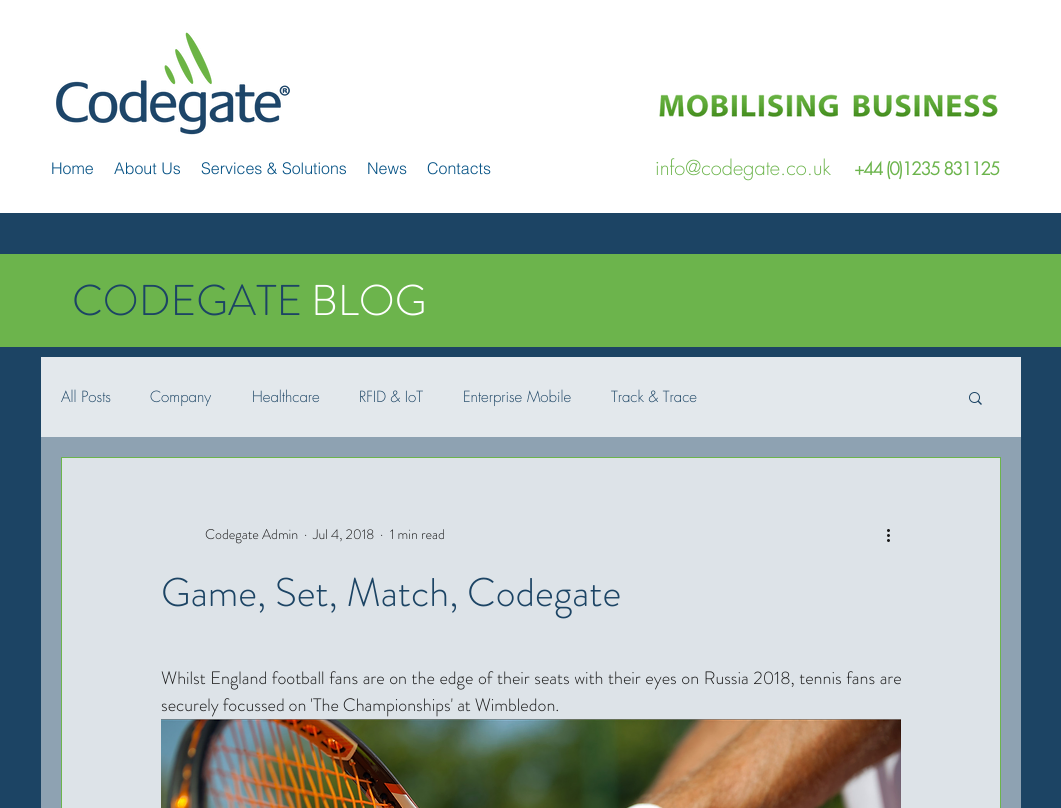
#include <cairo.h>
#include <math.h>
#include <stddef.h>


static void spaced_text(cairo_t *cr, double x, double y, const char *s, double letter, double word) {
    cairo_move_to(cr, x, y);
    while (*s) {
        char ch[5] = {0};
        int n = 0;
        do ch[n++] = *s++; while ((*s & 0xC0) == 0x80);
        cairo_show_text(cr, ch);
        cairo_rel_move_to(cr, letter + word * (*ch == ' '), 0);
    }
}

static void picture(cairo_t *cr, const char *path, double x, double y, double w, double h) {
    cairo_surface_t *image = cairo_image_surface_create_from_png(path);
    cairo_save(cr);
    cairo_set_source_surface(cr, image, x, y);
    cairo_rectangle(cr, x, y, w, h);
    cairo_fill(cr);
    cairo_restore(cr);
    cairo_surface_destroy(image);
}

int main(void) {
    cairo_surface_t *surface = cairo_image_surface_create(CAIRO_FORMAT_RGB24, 1061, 808);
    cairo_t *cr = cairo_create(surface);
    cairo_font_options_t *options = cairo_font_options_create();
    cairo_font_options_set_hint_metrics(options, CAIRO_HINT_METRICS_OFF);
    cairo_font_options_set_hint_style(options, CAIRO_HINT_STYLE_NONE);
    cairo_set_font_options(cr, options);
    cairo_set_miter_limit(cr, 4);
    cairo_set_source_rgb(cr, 0.11, 0.267, 0.392);
    cairo_paint(cr);
    cairo_set_source_rgb(cr, 1, 1, 1);
    cairo_rectangle(cr, 0, 0, 1061, 213);
    cairo_fill(cr);
    picture(cr, "img1.png", 56, 32, 234, 103);
    picture(cr, "img2.png", 659, 94, 339, 23);
    cairo_select_font_face(cr, "helvetica Light", CAIRO_FONT_SLANT_NORMAL, CAIRO_FONT_WEIGHT_NORMAL);
    cairo_set_font_size(cr, 16);
    cairo_set_source_rgb(cr, 0.016, 0.318, 0.518);
    cairo_move_to(cr, 51, 174);
    cairo_show_text(cr, "Home");
    cairo_move_to(cr, 114, 174);
    cairo_show_text(cr, "About Us");
    cairo_move_to(cr, 201, 174);
    cairo_show_text(cr, "Services & Solutions");
    cairo_move_to(cr, 367, 174);
    cairo_show_text(cr, "News");
    cairo_move_to(cr, 427, 174);
    cairo_show_text(cr, "Contacts");
    cairo_select_font_face(cr, "futura Light", CAIRO_FONT_SLANT_NORMAL, CAIRO_FONT_WEIGHT_NORMAL);
    cairo_set_font_size(cr, 20);
    cairo_set_source_rgb(cr, 0.424, 0.706, 0.298);
    cairo_move_to(cr, 655, 175);
    cairo_show_text(cr, "info@codegate.co.uk");
    cairo_select_font_face(cr, "futura", CAIRO_FONT_SLANT_NORMAL, CAIRO_FONT_WEIGHT_NORMAL);
    cairo_set_font_size(cr, 18);
    spaced_text(cr, 854, 175, "+44 (0)1235 831125", -1.75, 0);
    cairo_rectangle(cr, 0, 254, 1061, 93);
    cairo_fill(cr);
    cairo_select_font_face(cr, "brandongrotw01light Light", CAIRO_FONT_SLANT_NORMAL, CAIRO_FONT_WEIGHT_NORMAL);
    cairo_set_font_size(cr, 43);
    cairo_set_source_rgb(cr, 0.11, 0.267, 0.392);
    cairo_move_to(cr, 72, 315);
    cairo_show_text(cr, "CODEGATE");
    cairo_set_source_rgb(cr, 1, 1, 1);
    cairo_move_to(cr, 311, 315);
    cairo_show_text(cr, "BLOG");
    cairo_set_source_rgb(cr, 0.557, 0.635, 0.698);
    cairo_rectangle(cr, 41, 437, 980, 371);
    cairo_fill(cr);
    cairo_set_source_rgb(cr, 0.89, 0.91, 0.925);
    cairo_rectangle(cr, 41, 357, 980, 80);
    cairo_fill(cr);
    cairo_select_font_face(cr, "futura Light", CAIRO_FONT_SLANT_NORMAL, CAIRO_FONT_WEIGHT_NORMAL);
    cairo_set_font_size(cr, 15);
    cairo_set_source_rgb(cr, 0.11, 0.267, 0.392);
    cairo_move_to(cr, 61, 402);
    cairo_show_text(cr, "All Posts");
    cairo_move_to(cr, 150, 402);
    cairo_show_text(cr, "Company");
    cairo_move_to(cr, 252, 402);
    cairo_show_text(cr, "Healthcare");
    cairo_move_to(cr, 359, 402);
    cairo_show_text(cr, "RFID & IoT");
    cairo_move_to(cr, 463, 402);
    cairo_show_text(cr, "Enterprise Mobile");
    cairo_move_to(cr, 611, 402);
    cairo_show_text(cr, "Track & Trace");
    picture(cr, "img3.png", 969, 392, 13, 13);
    cairo_set_source_rgb(cr, 0.867, 0.89, 0.91);
    cairo_rectangle(cr, 61.5, 457.5, 939, 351);
    cairo_fill_preserve(cr);
    cairo_set_source_rgb(cr, 0.424, 0.706, 0.298);
    cairo_set_line_width(cr, 1);
    cairo_stroke(cr);
    cairo_select_font_face(cr, "brandongrotw01light Light", CAIRO_FONT_SLANT_NORMAL, CAIRO_FONT_WEIGHT_NORMAL);
    cairo_set_font_size(cr, 14);
    cairo_set_source_rgb(cr, 0.094, 0.094, 0.094);
    cairo_move_to(cr, 205, 539);
    cairo_show_text(cr, "Codegate Admin");
    cairo_move_to(cr, 304, 539);
    cairo_show_text(cr, "·");
    cairo_move_to(cr, 313, 539);
    cairo_show_text(cr, "Jul 4, 2018");
    cairo_move_to(cr, 380, 539);
    cairo_show_text(cr, "·");
    cairo_move_to(cr, 390, 539);
    cairo_show_text(cr, "1 min read");
    picture(cr, "img4.png", 887, 529, 3, 13);
    cairo_set_font_size(cr, 40);
    cairo_set_source_rgb(cr, 0.11, 0.267, 0.392);
    cairo_move_to(cr, 161, 606);
    cairo_show_text(cr, "Game, Set, Match, Codegate");
    cairo_set_font_size(cr, 18);
    cairo_set_source_rgb(cr, 0.094, 0.094, 0.094);
    spaced_text(cr, 161, 684, "Whilst England football fans are on the edge of their seats with their eyes on Russia 2018, tennis fans are", 0, 0.7);
    cairo_move_to(cr, 161, 711);
    cairo_show_text(cr, "securely focussed on 'The Championships' at Wimbledon.");
    picture(cr, "img5.png", 161, 719, 740, 89);
    cairo_surface_write_to_png(surface, "page.png");
    cairo_font_options_destroy(options);
    cairo_destroy(cr);
    cairo_surface_destroy(surface);
    return 0;
}
